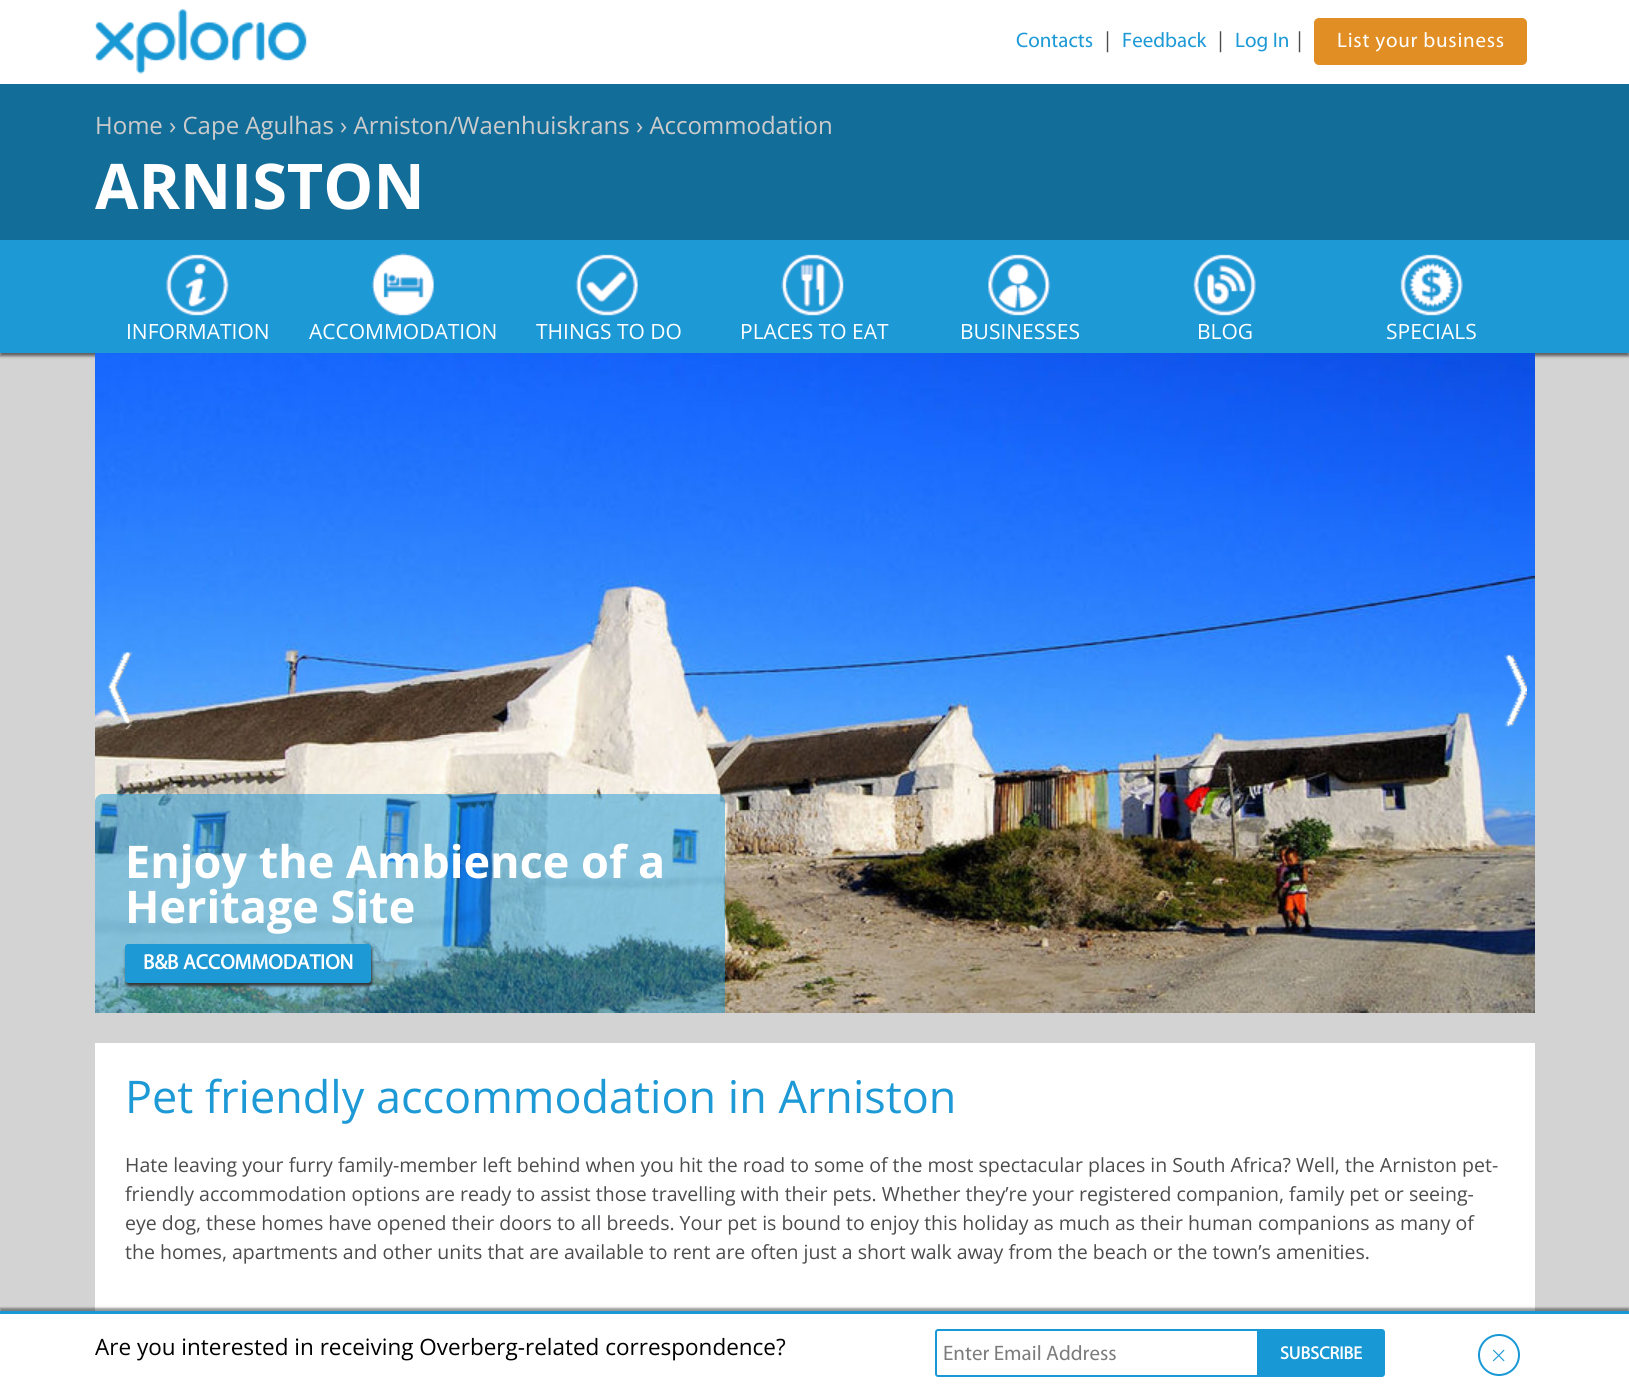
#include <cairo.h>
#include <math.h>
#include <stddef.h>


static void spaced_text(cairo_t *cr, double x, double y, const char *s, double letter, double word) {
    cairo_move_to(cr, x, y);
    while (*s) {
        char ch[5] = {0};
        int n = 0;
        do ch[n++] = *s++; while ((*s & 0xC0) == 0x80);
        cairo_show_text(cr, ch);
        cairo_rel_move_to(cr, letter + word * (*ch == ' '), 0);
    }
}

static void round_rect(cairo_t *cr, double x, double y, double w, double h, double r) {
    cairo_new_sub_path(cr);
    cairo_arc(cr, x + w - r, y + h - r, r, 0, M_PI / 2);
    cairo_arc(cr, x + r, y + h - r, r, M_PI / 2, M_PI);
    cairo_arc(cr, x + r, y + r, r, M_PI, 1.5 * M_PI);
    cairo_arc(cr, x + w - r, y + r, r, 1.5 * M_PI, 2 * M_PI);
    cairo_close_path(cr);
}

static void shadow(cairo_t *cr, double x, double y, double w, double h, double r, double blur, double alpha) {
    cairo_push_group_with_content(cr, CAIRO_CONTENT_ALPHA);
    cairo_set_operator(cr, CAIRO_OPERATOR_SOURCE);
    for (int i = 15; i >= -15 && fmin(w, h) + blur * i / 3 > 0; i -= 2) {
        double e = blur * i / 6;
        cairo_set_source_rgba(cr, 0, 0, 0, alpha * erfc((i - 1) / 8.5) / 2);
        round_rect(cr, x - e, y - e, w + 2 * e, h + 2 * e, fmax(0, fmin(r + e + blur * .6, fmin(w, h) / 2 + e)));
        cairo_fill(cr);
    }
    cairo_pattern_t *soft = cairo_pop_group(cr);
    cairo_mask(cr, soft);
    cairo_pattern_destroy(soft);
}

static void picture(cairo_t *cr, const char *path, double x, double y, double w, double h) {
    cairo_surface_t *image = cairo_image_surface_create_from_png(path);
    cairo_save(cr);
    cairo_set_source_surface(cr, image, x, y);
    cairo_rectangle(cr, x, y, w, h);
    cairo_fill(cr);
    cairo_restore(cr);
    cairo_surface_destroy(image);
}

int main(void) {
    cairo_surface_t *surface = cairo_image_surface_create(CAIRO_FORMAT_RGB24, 1629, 1392);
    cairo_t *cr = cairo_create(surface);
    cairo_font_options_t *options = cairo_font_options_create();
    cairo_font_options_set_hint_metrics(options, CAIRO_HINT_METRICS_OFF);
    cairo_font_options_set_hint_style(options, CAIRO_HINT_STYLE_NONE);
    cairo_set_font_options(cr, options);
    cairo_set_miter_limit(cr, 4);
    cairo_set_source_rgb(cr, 0.827, 0.827, 0.827);
    cairo_paint(cr);
    cairo_set_source_rgb(cr, 1, 1, 1);
    cairo_rectangle(cr, 0, 0, 1629, 84);
    cairo_fill(cr);
    picture(cr, "img1.png", 95, 9, 212, 65);
    cairo_select_font_face(cr, "Myriad", CAIRO_FONT_SLANT_NORMAL, CAIRO_FONT_WEIGHT_NORMAL);
    cairo_set_font_size(cr, 21);
    cairo_set_source_rgb(cr, 0.114, 0.604, 0.839);
    cairo_move_to(cr, 1016, 47);
    cairo_show_text(cr, "Contacts");
    cairo_set_source_rgb(cr, 0.298, 0.298, 0.306);
    cairo_move_to(cr, 1105, 47);
    cairo_show_text(cr, "|");
    cairo_set_source_rgb(cr, 0.114, 0.604, 0.839);
    cairo_move_to(cr, 1122, 47);
    cairo_show_text(cr, "Feedback");
    cairo_set_source_rgb(cr, 0.298, 0.298, 0.306);
    cairo_move_to(cr, 1218, 47);
    cairo_show_text(cr, "|");
    cairo_set_source_rgb(cr, 0.114, 0.604, 0.839);
    cairo_move_to(cr, 1235, 47);
    cairo_show_text(cr, "Log In");
    cairo_set_source_rgb(cr, 0.298, 0.298, 0.306);
    cairo_move_to(cr, 1297, 47);
    cairo_show_text(cr, "|");
    cairo_set_source_rgb(cr, 0.882, 0.557, 0.141);
    round_rect(cr, 1314, 18, 213, 47, 5);
    cairo_fill(cr);
    cairo_set_source_rgb(cr, 1, 1, 1);
    spaced_text(cr, 1337, 47, "List your business", 0.75, 0);
    cairo_set_source_rgb(cr, 0.075, 0.427, 0.6);
    cairo_rectangle(cr, 0, 84, 1629, 156);
    cairo_fill(cr);
    cairo_select_font_face(cr, "Open Sans", CAIRO_FONT_SLANT_NORMAL, CAIRO_FONT_WEIGHT_NORMAL);
    cairo_set_font_size(cr, 24);
    cairo_set_source_rgb(cr, 0.8, 0.8, 0.8);
    cairo_move_to(cr, 95, 134);
    cairo_show_text(cr, "Home › Cape Agulhas › Arniston/Waenhuiskrans › Accommodation");
    cairo_select_font_face(cr, "Open Sans", CAIRO_FONT_SLANT_NORMAL, CAIRO_FONT_WEIGHT_BOLD);
    cairo_set_font_size(cr, 63);
    cairo_set_source_rgb(cr, 1, 1, 1);
    cairo_move_to(cr, 95, 209);
    cairo_show_text(cr, "ARNISTON");
    cairo_set_source_rgb(cr, 0.176, 0.176, 0.176);
    shadow(cr, 0, 243, 1629, 113, 0, 1.5, 0.7);
    cairo_set_source_rgb(cr, 0.114, 0.604, 0.839);
    cairo_rectangle(cr, 0, 240, 1629, 113);
    cairo_fill(cr);
    picture(cr, "img2.png", 166, 254, 63, 62);
    cairo_select_font_face(cr, "Open Sans", CAIRO_FONT_SLANT_NORMAL, CAIRO_FONT_WEIGHT_NORMAL);
    cairo_set_font_size(cr, 21);
    cairo_set_source_rgb(cr, 1, 1, 1);
    cairo_move_to(cr, 126, 339);
    cairo_show_text(cr, "INFORMATION");
    picture(cr, "img3.png", 371, 253, 63, 63);
    cairo_move_to(cr, 309, 339);
    cairo_show_text(cr, "ACCOMMODATION");
    picture(cr, "img4.png", 575, 254, 63, 62);
    cairo_move_to(cr, 536, 339);
    cairo_show_text(cr, "THINGS TO DO");
    picture(cr, "img5.png", 781, 254, 63, 62);
    cairo_move_to(cr, 740, 339);
    cairo_show_text(cr, "PLACES TO EAT");
    picture(cr, "img6.png", 988, 254, 63, 62);
    cairo_move_to(cr, 960, 339);
    cairo_show_text(cr, "BUSINESSES");
    picture(cr, "img7.png", 1193, 254, 63, 62);
    cairo_move_to(cr, 1197, 339);
    cairo_show_text(cr, "BLOG");
    picture(cr, "img8.png", 1400, 254, 63, 62);
    cairo_move_to(cr, 1386, 339);
    cairo_show_text(cr, "SPECIALS");
    picture(cr, "img11.png", 95, 353, 1440, 660);
    picture(cr, "img9.png", 107, 652, 25, 73);
    picture(cr, "img10.png", 1504, 654, 23, 74);
    cairo_set_source_rgba(cr, 0.106, 0.6, 0.839, 0.5);
    cairo_new_path(cr);
    cairo_move_to(cr, 103, 794);
    cairo_line_to(cr, 717, 794);
    cairo_curve_to(cr, 721.5, 794, 725, 797.5, 725, 802);
    cairo_line_to(cr, 725, 1013);
    cairo_line_to(cr, 95, 1013);
    cairo_line_to(cr, 95, 802);
    cairo_curve_to(cr, 95, 797.5, 98.5, 794, 103, 794);
    cairo_close_path(cr);
    cairo_fill(cr);
    cairo_select_font_face(cr, "Open Sans", CAIRO_FONT_SLANT_NORMAL, CAIRO_FONT_WEIGHT_BOLD);
    cairo_set_font_size(cr, 45);
    cairo_set_source_rgb(cr, 1, 1, 1);
    cairo_move_to(cr, 125, 878);
    cairo_show_text(cr, "Enjoy the Ambience of a");
    cairo_move_to(cr, 125, 923);
    cairo_show_text(cr, "Heritage Site");
    cairo_set_source_rgb(cr, 0.2, 0.2, 0.2);
    shadow(cr, 126, 947, 246, 39, 3, 1.5, 1);
    cairo_set_source_rgb(cr, 0.114, 0.604, 0.839);
    round_rect(cr, 126.5, 945.5, 243, 36, 1.5);
    cairo_fill_preserve(cr);
    cairo_set_line_width(cr, 3);
    cairo_stroke(cr);
    cairo_select_font_face(cr, "Myriad", CAIRO_FONT_SLANT_NORMAL, CAIRO_FONT_WEIGHT_BOLD);
    cairo_set_font_size(cr, 21);
    cairo_set_source_rgb(cr, 1, 1, 1);
    cairo_move_to(cr, 143, 969);
    cairo_show_text(cr, "B&B ACCOMMODATION");
    cairo_rectangle(cr, 95, 1043, 1440, 268);
    cairo_fill(cr);
    cairo_select_font_face(cr, "Open Sans", CAIRO_FONT_SLANT_NORMAL, CAIRO_FONT_WEIGHT_NORMAL);
    cairo_set_font_size(cr, 45);
    cairo_set_source_rgb(cr, 0.114, 0.604, 0.839);
    cairo_move_to(cr, 125, 1113);
    cairo_show_text(cr, "Pet friendly accommodation in Arniston");
    cairo_set_font_size(cr, 19.5);
    cairo_set_source_rgb(cr, 0.298, 0.298, 0.306);
    cairo_move_to(cr, 125, 1172);
    cairo_show_text(cr, "Hate leaving your furry family-member left behind when you hit the road to some of the most spectacular places in South Africa? Well, the Arniston pet-");
    cairo_move_to(cr, 125, 1201);
    cairo_show_text(cr, "friendly accommodation options are ready to assist those travelling with their pets. Whether they’re your registered companion, family pet or seeing-");
    cairo_move_to(cr, 125, 1230);
    cairo_show_text(cr, "eye dog, these homes have opened their doors to all breeds. Your pet is bound to enjoy this holiday as much as their human companions as many of");
    cairo_move_to(cr, 125, 1259);
    cairo_show_text(cr, "the homes, apartments and other units that are available to rent are often just a short walk away from the beach or the town’s amenities.");
    cairo_set_source_rgb(cr, 0, 0, 0);
    shadow(cr, 0, 1308, 1629, 81, 0, 1, 0.4);
    cairo_set_source_rgb(cr, 1, 1, 1);
    cairo_rectangle(cr, 0, 1314, 1629, 78);
    cairo_fill(cr);
    cairo_set_source_rgb(cr, 0.094, 0.596, 0.835);
    cairo_rectangle(cr, 0, 1311, 1629, 3);
    cairo_fill(cr);
    cairo_set_font_size(cr, 22.5);
    cairo_set_source_rgb(cr, 0, 0, 0);
    cairo_move_to(cr, 95, 1355);
    cairo_show_text(cr, "Are you interested in receiving Overberg-related correspondence?");
    cairo_new_path(cr);
    cairo_move_to(cr, 938, 1330);
    cairo_line_to(cr, 1258, 1330);
    cairo_line_to(cr, 1258, 1376);
    cairo_line_to(cr, 938, 1376);
    cairo_curve_to(cr, 937, 1376, 936, 1375, 936, 1374);
    cairo_line_to(cr, 936, 1332);
    cairo_curve_to(cr, 936, 1331, 937, 1330, 938, 1330);
    cairo_close_path(cr);
    cairo_set_source_rgb(cr, 0.094, 0.596, 0.835);
    cairo_set_line_width(cr, 2);
    cairo_stroke(cr);
    cairo_select_font_face(cr, "Myriad", CAIRO_FONT_SLANT_NORMAL, CAIRO_FONT_WEIGHT_NORMAL);
    cairo_set_font_size(cr, 21);
    cairo_set_source_rgb(cr, 0.486, 0.486, 0.486);
    cairo_move_to(cr, 943, 1360);
    cairo_show_text(cr, "Enter Email Address");
    cairo_set_source_rgb(cr, 0.094, 0.596, 0.835);
    cairo_new_path(cr);
    cairo_move_to(cr, 1259, 1329);
    cairo_line_to(cr, 1382, 1329);
    cairo_curve_to(cr, 1383.5, 1329, 1385, 1330.5, 1385, 1332);
    cairo_line_to(cr, 1385, 1374);
    cairo_curve_to(cr, 1385, 1375.5, 1383.5, 1377, 1382, 1377);
    cairo_line_to(cr, 1259, 1377);
    cairo_close_path(cr);
    cairo_fill(cr);
    cairo_select_font_face(cr, "Myriad", CAIRO_FONT_SLANT_NORMAL, CAIRO_FONT_WEIGHT_BOLD);
    cairo_set_font_size(cr, 18);
    cairo_set_source_rgb(cr, 1, 1, 1);
    cairo_move_to(cr, 1280, 1359);
    cairo_show_text(cr, "SUBSCRIBE");
    cairo_new_path(cr);
    cairo_arc(cr, 1499, 1355, 20, 0, 2 * M_PI);
    cairo_set_source_rgb(cr, 0.094, 0.596, 0.835);
    cairo_stroke(cr);
    cairo_select_font_face(cr, "Open Sans Light", CAIRO_FONT_SLANT_NORMAL, CAIRO_FONT_WEIGHT_NORMAL);
    cairo_set_font_size(cr, 27);
    cairo_set_source_rgb(cr, 0.114, 0.604, 0.839);
    cairo_move_to(cr, 1491, 1365);
    cairo_show_text(cr, "×");
    cairo_surface_write_to_png(surface, "page.png");
    cairo_font_options_destroy(options);
    cairo_destroy(cr);
    cairo_surface_destroy(surface);
    return 0;
}
